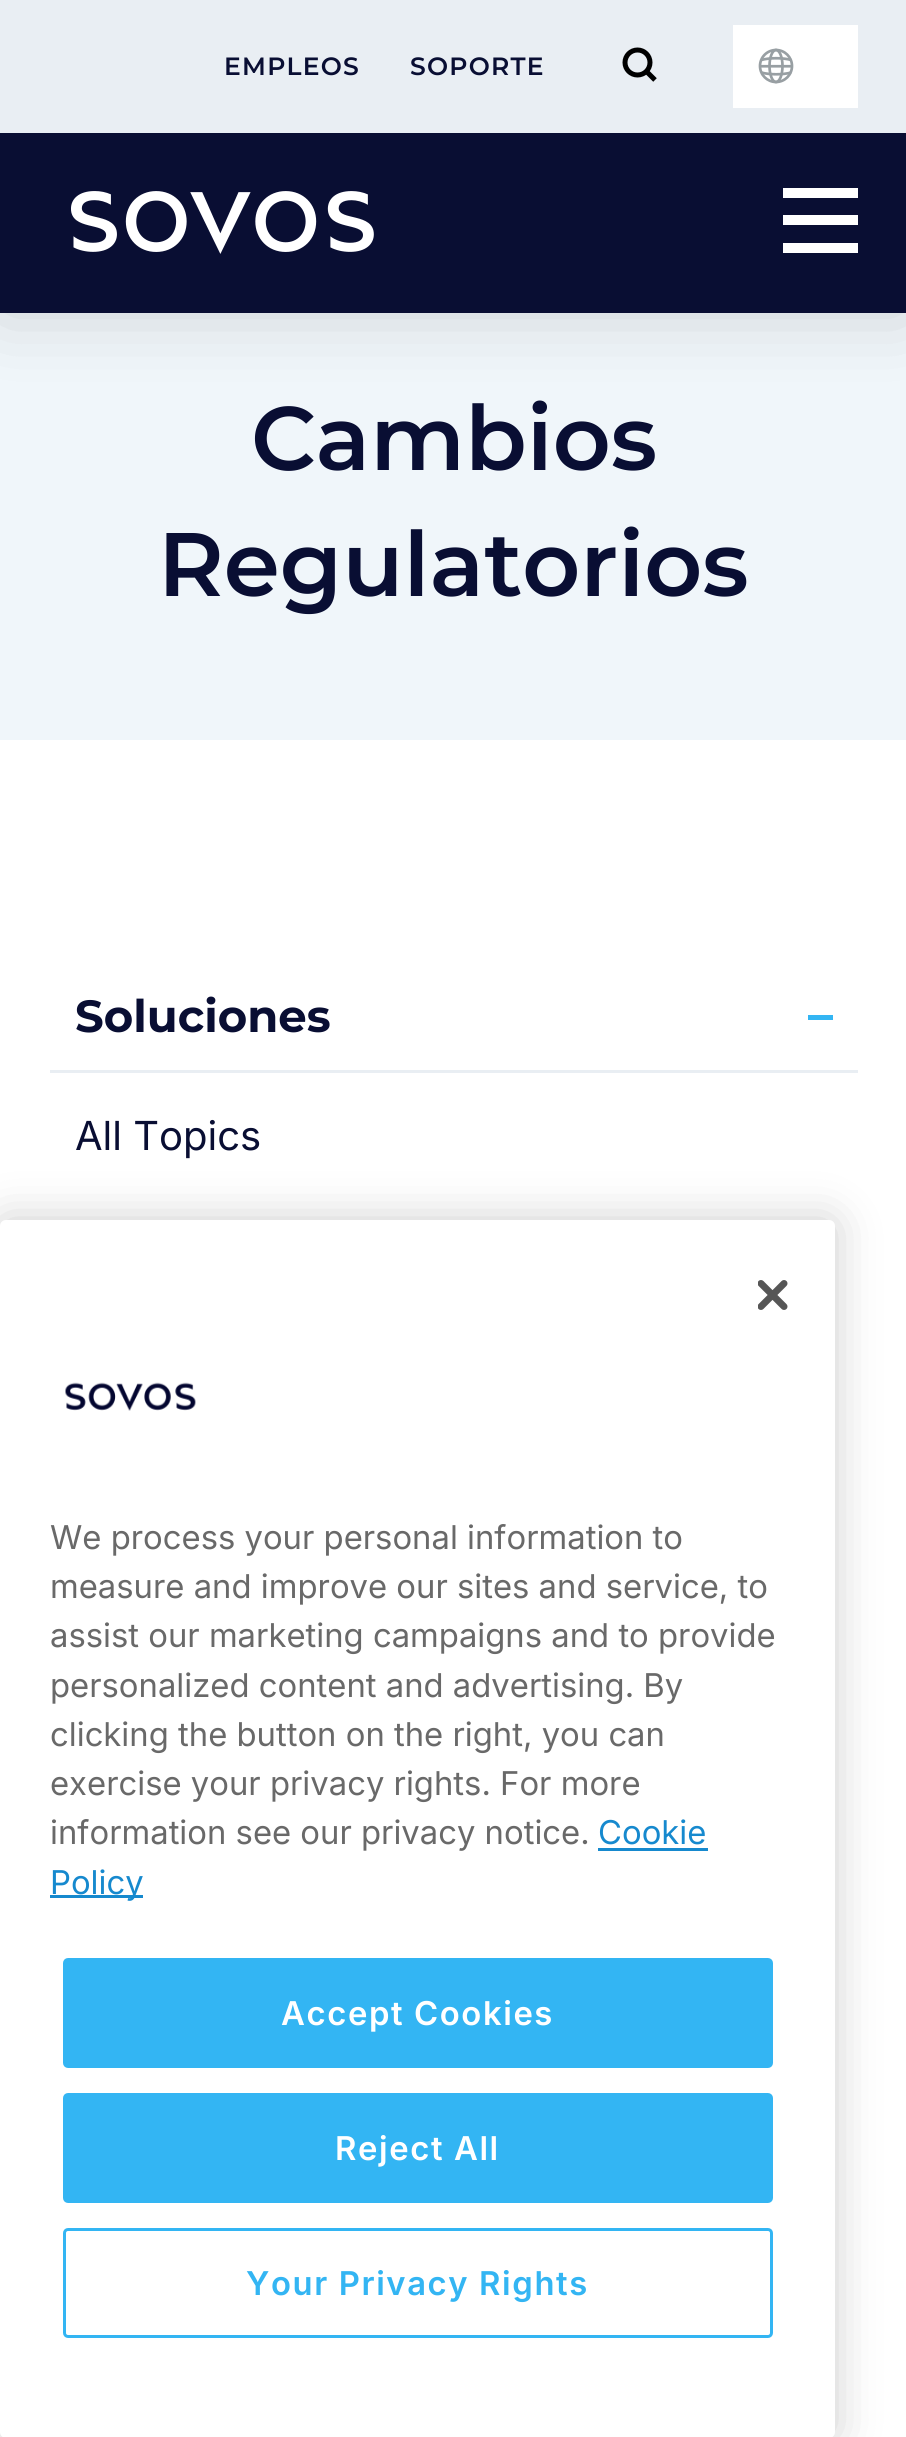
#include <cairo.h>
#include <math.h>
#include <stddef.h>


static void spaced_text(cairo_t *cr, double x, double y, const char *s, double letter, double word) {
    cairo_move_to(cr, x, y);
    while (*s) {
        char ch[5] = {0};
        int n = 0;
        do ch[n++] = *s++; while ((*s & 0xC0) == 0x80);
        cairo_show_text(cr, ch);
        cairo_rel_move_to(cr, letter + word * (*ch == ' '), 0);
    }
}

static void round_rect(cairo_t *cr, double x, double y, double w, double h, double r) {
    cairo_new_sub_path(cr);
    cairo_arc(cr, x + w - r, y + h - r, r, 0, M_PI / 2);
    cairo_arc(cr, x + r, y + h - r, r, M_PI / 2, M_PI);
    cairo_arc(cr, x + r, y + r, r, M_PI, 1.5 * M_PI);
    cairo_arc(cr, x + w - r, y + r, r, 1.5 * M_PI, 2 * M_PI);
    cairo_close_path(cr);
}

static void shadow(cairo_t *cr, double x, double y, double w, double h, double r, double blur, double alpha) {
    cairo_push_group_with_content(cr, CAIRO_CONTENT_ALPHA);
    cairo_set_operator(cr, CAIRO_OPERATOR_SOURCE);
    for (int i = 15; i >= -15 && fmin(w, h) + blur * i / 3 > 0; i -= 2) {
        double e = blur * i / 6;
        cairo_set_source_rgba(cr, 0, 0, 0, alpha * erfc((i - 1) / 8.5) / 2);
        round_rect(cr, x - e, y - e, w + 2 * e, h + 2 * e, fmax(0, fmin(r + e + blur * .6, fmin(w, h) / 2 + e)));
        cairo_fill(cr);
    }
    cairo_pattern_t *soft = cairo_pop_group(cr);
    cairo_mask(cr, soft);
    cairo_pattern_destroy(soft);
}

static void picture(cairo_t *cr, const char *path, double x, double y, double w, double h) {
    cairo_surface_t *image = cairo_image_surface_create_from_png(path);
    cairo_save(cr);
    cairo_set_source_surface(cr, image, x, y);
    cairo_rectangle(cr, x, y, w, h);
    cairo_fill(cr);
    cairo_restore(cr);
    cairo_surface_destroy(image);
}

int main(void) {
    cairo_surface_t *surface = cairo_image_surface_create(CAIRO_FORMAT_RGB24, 906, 2437);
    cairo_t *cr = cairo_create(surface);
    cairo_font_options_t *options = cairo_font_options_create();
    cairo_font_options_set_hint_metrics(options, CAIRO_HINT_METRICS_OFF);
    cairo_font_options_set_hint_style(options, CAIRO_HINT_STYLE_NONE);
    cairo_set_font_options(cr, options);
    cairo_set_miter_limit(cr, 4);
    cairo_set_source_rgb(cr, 1, 1, 1);
    cairo_paint(cr);
    cairo_set_source_rgb(cr, 0.941, 0.961, 0.98);
    cairo_rectangle(cr, 0, 313, 906, 427);
    cairo_fill(cr);
    cairo_set_source_rgb(cr, 0, 0, 0);
    shadow(cr, 0, 0, 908, 313, 0, 37.5, 0.15);
    cairo_set_source_rgb(cr, 0.039, 0.055, 0.2);
    cairo_rectangle(cr, 0, 133, 906, 180);
    cairo_fill(cr);
    cairo_set_source_rgb(cr, 0.914, 0.933, 0.953);
    cairo_rectangle(cr, 0, 0, 906, 133);
    cairo_fill(cr);
    cairo_select_font_face(cr, "Montserrat SemiBold", CAIRO_FONT_SLANT_NORMAL, CAIRO_FONT_WEIGHT_NORMAL);
    cairo_set_font_size(cr, 25);
    cairo_set_source_rgb(cr, 0.039, 0.055, 0.2);
    spaced_text(cr, 224, 75, "EMPLEOS", 1.25, 0);
    spaced_text(cr, 410, 75, "SOPORTE", 1.25, 0);
    cairo_new_path(cr);
    cairo_arc(cr, 637.5, 62.5, 12.5, 0, 2 * M_PI);
    cairo_set_source_rgb(cr, 0, 0, 0);
    cairo_set_line_width(cr, 5);
    cairo_stroke(cr);
    cairo_new_path(cr);
    cairo_move_to(cr, 646.5, 71.5);
    cairo_line_to(cr, 655, 80);
    cairo_stroke(cr);
    cairo_set_source_rgb(cr, 1, 1, 1);
    cairo_rectangle(cr, 733, 25, 125, 83);
    cairo_fill(cr);
    picture(cr, "img1.png", 758, 48, 36, 36);
    picture(cr, "img2.png", 71, 191, 303, 63);
    cairo_rectangle(cr, 783, 243, 75, 10);
    cairo_fill(cr);
    cairo_rectangle(cr, 783, 188, 75, 10);
    cairo_fill(cr);
    cairo_rectangle(cr, 783, 215, 75, 10);
    cairo_fill(cr);
    cairo_set_font_size(cr, 90);
    cairo_set_source_rgb(cr, 0.039, 0.055, 0.2);
    cairo_move_to(cr, 251, 470);
    cairo_show_text(cr, "Cambios");
    cairo_move_to(cr, 158, 596);
    cairo_show_text(cr, "Regulatorios");
    cairo_set_source_rgb(cr, 0.914, 0.933, 0.953);
    cairo_rectangle(cr, 50, 1070, 808, 3);
    cairo_fill(cr);
    cairo_select_font_face(cr, "Montserrat", CAIRO_FONT_SLANT_NORMAL, CAIRO_FONT_WEIGHT_BOLD);
    cairo_set_font_size(cr, 45);
    cairo_set_source_rgb(cr, 0.039, 0.055, 0.2);
    cairo_move_to(cr, 75, 1032);
    cairo_show_text(cr, "Soluciones");
    cairo_set_source_rgb(cr, 0.2, 0.71, 0.953);
    cairo_rectangle(cr, 808, 1015, 25, 5);
    cairo_fill(cr);
    cairo_select_font_face(cr, "Inter", CAIRO_FONT_SLANT_NORMAL, CAIRO_FONT_WEIGHT_NORMAL);
    cairo_set_font_size(cr, 40);
    cairo_set_source_rgb(cr, 0.039, 0.055, 0.2);
    cairo_move_to(cr, 75, 1150);
    cairo_show_text(cr, "All Topics");
    cairo_set_source_rgb(cr, 0, 0, 0);
    shadow(cr, 0, 1220, 835, 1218, 6, 22.5, 0.2);
    cairo_set_source_rgb(cr, 1, 1, 1);
    round_rect(cr, 0, 1220, 835, 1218, 6);
    cairo_fill(cr);
    picture(cr, "img3.png", 758, 1280, 30, 30);
    picture(cr, "img4.png", 65, 1382, 131, 29);
    cairo_set_font_size(cr, 32.8);
    cairo_set_source_rgb(cr, 0.412, 0.412, 0.412);
    cairo_move_to(cr, 50, 1549);
    cairo_show_text(cr, "We process your personal information to");
    cairo_move_to(cr, 50, 1598);
    cairo_show_text(cr, "measure and improve our sites and service, to");
    cairo_move_to(cr, 50, 1647);
    cairo_show_text(cr, "assist our marketing campaigns and to provide");
    cairo_move_to(cr, 50, 1697);
    cairo_show_text(cr, "personalized content and advertising. By");
    cairo_move_to(cr, 50, 1746);
    cairo_show_text(cr, "clicking the button on the right, you can");
    cairo_move_to(cr, 50, 1795);
    cairo_show_text(cr, "exercise your privacy rights. For more");
    cairo_move_to(cr, 50, 1844);
    cairo_show_text(cr, "information see our privacy notice.");
    cairo_set_source_rgb(cr, 0.086, 0.537, 0.808);
    cairo_move_to(cr, 598, 1844);
    cairo_show_text(cr, "Cookie");
    cairo_rectangle(cr, 598, 1848, 110, 3);
    cairo_fill(cr);
    cairo_rectangle(cr, 50, 1895, 93, 3);
    cairo_fill(cr);
    cairo_move_to(cr, 50, 1894);
    cairo_show_text(cr, "Policy");
    cairo_set_source_rgb(cr, 0.2, 0.71, 0.953);
    round_rect(cr, 64.5, 1959.5, 707, 107, 3.5);
    cairo_fill_preserve(cr);
    cairo_set_line_width(cr, 3);
    cairo_stroke(cr);
    cairo_select_font_face(cr, "Inter SemiBold", CAIRO_FONT_SLANT_NORMAL, CAIRO_FONT_WEIGHT_NORMAL);
    cairo_set_source_rgb(cr, 1, 1, 1);
    spaced_text(cr, 281, 2025, "Accept Cookies", 1.6, 0);
    cairo_set_source_rgb(cr, 0.2, 0.71, 0.953);
    round_rect(cr, 64.5, 2094.5, 707, 107, 3.5);
    cairo_fill_preserve(cr);
    cairo_stroke(cr);
    cairo_set_source_rgb(cr, 1, 1, 1);
    spaced_text(cr, 335, 2160, "Reject All", 1.6, 0);
    round_rect(cr, 64.5, 2229.5, 707, 107, 3.5);
    cairo_set_source_rgb(cr, 0.2, 0.71, 0.953);
    cairo_stroke(cr);
    spaced_text(cr, 246, 2295, "Your Privacy Rights", 1.6, 0);
    cairo_surface_write_to_png(surface, "page.png");
    cairo_font_options_destroy(options);
    cairo_destroy(cr);
    cairo_surface_destroy(surface);
    return 0;
}
